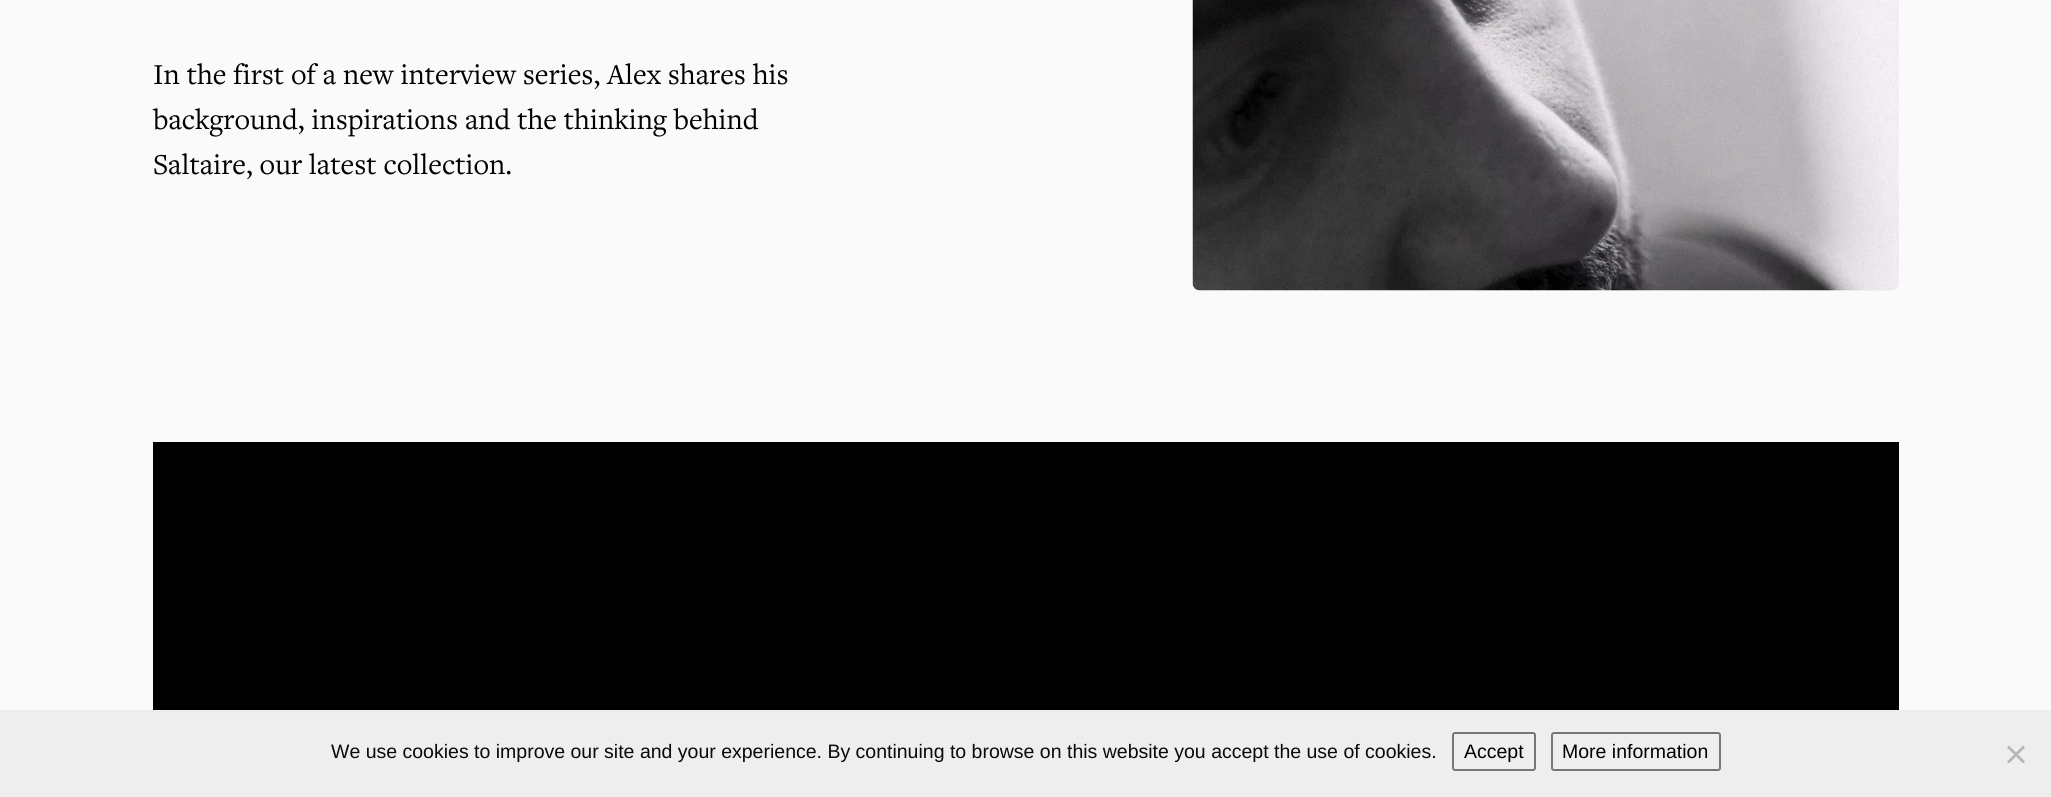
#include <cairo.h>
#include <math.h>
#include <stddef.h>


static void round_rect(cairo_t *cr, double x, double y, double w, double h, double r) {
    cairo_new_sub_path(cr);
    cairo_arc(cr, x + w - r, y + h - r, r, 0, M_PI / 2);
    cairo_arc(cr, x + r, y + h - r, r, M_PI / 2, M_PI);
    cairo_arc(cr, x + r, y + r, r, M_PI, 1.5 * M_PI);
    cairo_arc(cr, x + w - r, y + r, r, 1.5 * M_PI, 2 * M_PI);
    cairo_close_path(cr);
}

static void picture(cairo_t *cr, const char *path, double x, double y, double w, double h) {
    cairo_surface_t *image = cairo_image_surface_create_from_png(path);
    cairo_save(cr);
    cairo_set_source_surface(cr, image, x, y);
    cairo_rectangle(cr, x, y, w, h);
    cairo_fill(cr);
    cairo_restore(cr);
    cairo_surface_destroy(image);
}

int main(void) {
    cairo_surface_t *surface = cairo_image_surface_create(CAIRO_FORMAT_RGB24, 2051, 797);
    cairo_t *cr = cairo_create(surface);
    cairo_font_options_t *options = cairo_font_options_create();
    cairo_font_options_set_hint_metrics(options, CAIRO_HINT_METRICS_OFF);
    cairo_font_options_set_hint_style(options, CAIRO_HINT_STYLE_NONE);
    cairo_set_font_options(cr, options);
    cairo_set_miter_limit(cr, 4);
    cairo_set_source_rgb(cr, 0.98, 0.98, 0.98);
    cairo_paint(cr);
    cairo_select_font_face(cr, "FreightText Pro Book", CAIRO_FONT_SLANT_NORMAL, CAIRO_FONT_WEIGHT_NORMAL);
    cairo_set_font_size(cr, 30);
    cairo_set_source_rgb(cr, 0, 0, 0);
    cairo_move_to(cr, 153, 84);
    cairo_show_text(cr, "In the first of a new interview series, Alex shares his");
    cairo_move_to(cr, 153, 129);
    cairo_show_text(cr, "background, inspirations and the thinking behind");
    cairo_move_to(cr, 153, 174);
    cairo_show_text(cr, "Saltaire, our latest collection.");
    picture(cr, "img1.png", 1192, 0, 707, 291);
    cairo_rectangle(cr, 153, 442, 1746, 268);
    cairo_fill(cr);
    cairo_set_source_rgb(cr, 0.933, 0.933, 0.933);
    cairo_rectangle(cr, 0, 710, 2051, 87);
    cairo_fill(cr);
    cairo_select_font_face(cr, "Liberation Sans", CAIRO_FONT_SLANT_NORMAL, CAIRO_FONT_WEIGHT_NORMAL);
    cairo_set_font_size(cr, 19.5);
    cairo_set_source_rgb(cr, 0.039, 0.039, 0.039);
    cairo_move_to(cr, 331, 758);
    cairo_show_text(cr, "We use cookies to improve our site and your experience. By continuing to browse on this website you accept the use of cookies.");
    round_rect(cr, 1453, 733, 82, 37, 2);
    cairo_set_source_rgb(cr, 0.463, 0.463, 0.463);
    cairo_stroke(cr);
    cairo_set_source_rgb(cr, 0, 0, 0);
    cairo_move_to(cr, 1464, 758);
    cairo_show_text(cr, "Accept");
    round_rect(cr, 1552, 733, 168, 37, 2);
    cairo_set_source_rgb(cr, 0.463, 0.463, 0.463);
    cairo_stroke(cr);
    cairo_set_source_rgb(cr, 0, 0, 0);
    cairo_move_to(cr, 1562, 758);
    cairo_show_text(cr, "More information");
    cairo_set_source_rgb(cr, 0.718, 0.718, 0.718);
    cairo_new_path(cr);
    cairo_move_to(cr, 2023, 745.5);
    cairo_line_to(cr, 2025, 747.5);
    cairo_line_to(cr, 2009, 763.5);
    cairo_line_to(cr, 2007, 761.5);
    cairo_close_path(cr);
    cairo_fill(cr);
    cairo_new_path(cr);
    cairo_move_to(cr, 2007, 747.5);
    cairo_line_to(cr, 2009, 745.5);
    cairo_line_to(cr, 2025, 761.5);
    cairo_line_to(cr, 2023, 763.5);
    cairo_close_path(cr);
    cairo_fill(cr);
    cairo_surface_write_to_png(surface, "page.png");
    cairo_font_options_destroy(options);
    cairo_destroy(cr);
    cairo_surface_destroy(surface);
    return 0;
}
